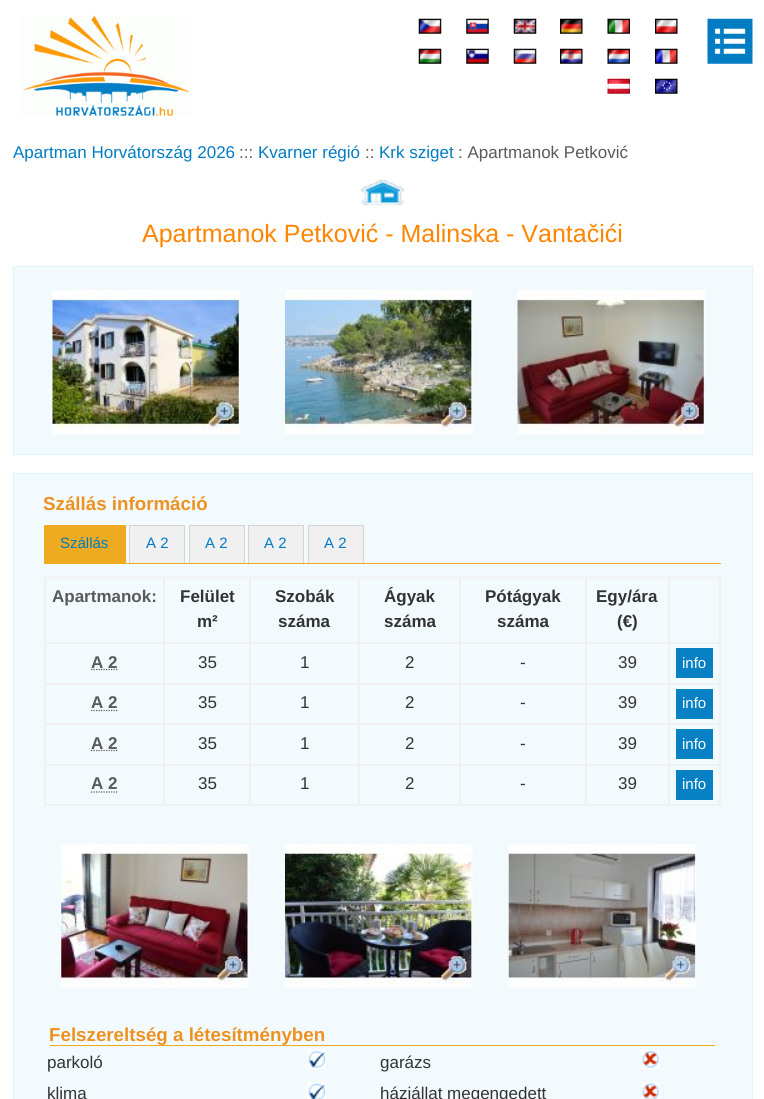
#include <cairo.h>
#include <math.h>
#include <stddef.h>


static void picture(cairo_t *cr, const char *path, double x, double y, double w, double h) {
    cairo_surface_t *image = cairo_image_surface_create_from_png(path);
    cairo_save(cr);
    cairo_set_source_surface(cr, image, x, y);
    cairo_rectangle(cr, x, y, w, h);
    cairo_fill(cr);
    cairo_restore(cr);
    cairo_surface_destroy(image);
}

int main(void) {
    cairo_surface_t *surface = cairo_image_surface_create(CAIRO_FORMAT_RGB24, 764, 1099);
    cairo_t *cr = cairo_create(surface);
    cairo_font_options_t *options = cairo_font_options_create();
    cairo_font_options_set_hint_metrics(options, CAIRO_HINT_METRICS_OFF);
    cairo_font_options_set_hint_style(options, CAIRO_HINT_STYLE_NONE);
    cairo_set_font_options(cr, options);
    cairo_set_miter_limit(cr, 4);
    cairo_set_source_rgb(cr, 1, 1, 1);
    cairo_paint(cr);
    picture(cr, "img1.png", 21, 15, 170, 101);
    picture(cr, "img2.png", 418, 18, 24, 16);
    picture(cr, "img3.png", 466, 18, 23, 16);
    picture(cr, "img4.png", 513, 18, 24, 16);
    picture(cr, "img5.png", 560, 18, 23, 16);
    picture(cr, "img6.png", 607, 18, 23, 16);
    picture(cr, "img7.png", 655, 18, 23, 16);
    picture(cr, "img8.png", 418, 48, 24, 16);
    picture(cr, "img9.png", 466, 48, 23, 16);
    picture(cr, "img10.png", 513, 48, 24, 16);
    picture(cr, "img11.png", 560, 48, 23, 16);
    picture(cr, "img12.png", 607, 48, 23, 16);
    picture(cr, "img13.png", 655, 48, 23, 16);
    picture(cr, "img14.png", 607, 78, 23, 16);
    picture(cr, "img15.png", 655, 78, 23, 16);
    picture(cr, "img16.png", 707, 18, 46, 46);
    cairo_select_font_face(cr, "Liberation Sans", CAIRO_FONT_SLANT_NORMAL, CAIRO_FONT_WEIGHT_NORMAL);
    cairo_set_font_size(cr, 17);
    cairo_set_source_rgb(cr, 0, 0.486, 0.765);
    cairo_move_to(cr, 13, 158);
    cairo_show_text(cr, "Apartman Horvátország 2026");
    cairo_set_source_rgb(cr, 0.353, 0.353, 0.353);
    cairo_move_to(cr, 239, 158);
    cairo_show_text(cr, ":::");
    cairo_set_source_rgb(cr, 0, 0.486, 0.765);
    cairo_move_to(cr, 258, 158);
    cairo_show_text(cr, "Kvarner régió");
    cairo_set_source_rgb(cr, 0.353, 0.353, 0.353);
    cairo_move_to(cr, 365, 158);
    cairo_show_text(cr, "::");
    cairo_set_source_rgb(cr, 0, 0.486, 0.765);
    cairo_move_to(cr, 379, 158);
    cairo_show_text(cr, "Krk sziget");
    cairo_set_source_rgb(cr, 0.353, 0.353, 0.353);
    cairo_move_to(cr, 458, 158);
    cairo_show_text(cr, ": Apartmanok Petković");
    picture(cr, "img17.png", 361, 180, 43, 26);
    cairo_set_font_size(cr, 25);
    cairo_set_source_rgb(cr, 1, 0.518, 0);
    cairo_move_to(cr, 142, 242);
    cairo_show_text(cr, "Apartmanok Petković - Malinska - Vantačići");
    cairo_set_source_rgb(cr, 0.949, 0.98, 0.996);
    cairo_rectangle(cr, 13.5, 266.5, 739, 188);
    cairo_fill_preserve(cr);
    cairo_set_source_rgb(cr, 0.878, 0.957, 1);
    cairo_set_line_width(cr, 1);
    cairo_stroke(cr);
    picture(cr, "img18.png", 52, 290, 188, 144);
    picture(cr, "img19.png", 285, 290, 188, 144);
    picture(cr, "img20.png", 517, 290, 188, 144);
    cairo_set_source_rgb(cr, 0.949, 0.98, 0.996);
    cairo_rectangle(cr, 13.5, 473.5, 739, 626);
    cairo_fill_preserve(cr);
    cairo_set_source_rgb(cr, 0.878, 0.957, 1);
    cairo_stroke(cr);
    cairo_select_font_face(cr, "Liberation Sans", CAIRO_FONT_SLANT_NORMAL, CAIRO_FONT_WEIGHT_BOLD);
    cairo_set_font_size(cr, 18.75);
    cairo_set_source_rgb(cr, 0.929, 0.569, 0.129);
    cairo_move_to(cr, 43, 510);
    cairo_show_text(cr, "Szállás információ");
    cairo_set_source_rgb(cr, 0.933, 0.671, 0.129);
    cairo_rectangle(cr, 45, 526, 80, 38);
    cairo_fill(cr);
    cairo_rectangle(cr, 44, 525, 82, 1);
    cairo_fill(cr);
    cairo_rectangle(cr, 125, 525, 1, 39);
    cairo_fill(cr);
    cairo_rectangle(cr, 44, 525, 1, 39);
    cairo_fill(cr);
    cairo_select_font_face(cr, "Liberation Sans", CAIRO_FONT_SLANT_NORMAL, CAIRO_FONT_WEIGHT_NORMAL);
    cairo_set_font_size(cr, 15);
    cairo_set_source_rgb(cr, 0, 0.486, 0.765);
    cairo_move_to(cr, 60, 548);
    cairo_show_text(cr, "Szállás");
    cairo_set_source_rgb(cr, 0.941, 0.941, 0.941);
    cairo_rectangle(cr, 130, 526, 54, 37);
    cairo_fill(cr);
    cairo_set_source_rgb(cr, 0.827, 0.827, 0.827);
    cairo_rectangle(cr, 129, 525, 56, 1);
    cairo_fill(cr);
    cairo_rectangle(cr, 184, 525, 1, 38);
    cairo_fill(cr);
    cairo_rectangle(cr, 129, 525, 1, 38);
    cairo_fill(cr);
    cairo_set_source_rgb(cr, 0, 0.486, 0.765);
    cairo_move_to(cr, 146, 548);
    cairo_show_text(cr, "A 2");
    cairo_set_source_rgb(cr, 0.941, 0.941, 0.941);
    cairo_rectangle(cr, 190, 526, 54, 37);
    cairo_fill(cr);
    cairo_set_source_rgb(cr, 0.827, 0.827, 0.827);
    cairo_rectangle(cr, 189, 525, 56, 1);
    cairo_fill(cr);
    cairo_rectangle(cr, 244, 525, 1, 38);
    cairo_fill(cr);
    cairo_rectangle(cr, 189, 525, 1, 38);
    cairo_fill(cr);
    cairo_set_source_rgb(cr, 0, 0.486, 0.765);
    cairo_move_to(cr, 205, 548);
    cairo_show_text(cr, "A 2");
    cairo_set_source_rgb(cr, 0.941, 0.941, 0.941);
    cairo_rectangle(cr, 249, 526, 54, 37);
    cairo_fill(cr);
    cairo_set_source_rgb(cr, 0.827, 0.827, 0.827);
    cairo_rectangle(cr, 248, 525, 56, 1);
    cairo_fill(cr);
    cairo_rectangle(cr, 303, 525, 1, 38);
    cairo_fill(cr);
    cairo_rectangle(cr, 248, 525, 1, 38);
    cairo_fill(cr);
    cairo_set_source_rgb(cr, 0, 0.486, 0.765);
    cairo_move_to(cr, 264, 548);
    cairo_show_text(cr, "A 2");
    cairo_set_source_rgb(cr, 0.941, 0.941, 0.941);
    cairo_rectangle(cr, 309, 526, 54, 37);
    cairo_fill(cr);
    cairo_set_source_rgb(cr, 0.827, 0.827, 0.827);
    cairo_rectangle(cr, 308, 525, 56, 1);
    cairo_fill(cr);
    cairo_rectangle(cr, 363, 525, 1, 38);
    cairo_fill(cr);
    cairo_rectangle(cr, 308, 525, 1, 38);
    cairo_fill(cr);
    cairo_set_source_rgb(cr, 0, 0.486, 0.765);
    cairo_move_to(cr, 324, 548);
    cairo_show_text(cr, "A 2");
    cairo_set_source_rgb(cr, 0.933, 0.671, 0.129);
    cairo_rectangle(cr, 126, 563, 595, 1);
    cairo_fill(cr);
    cairo_rectangle(cr, 44.5, 576.5, 676, 229);
    cairo_set_source_rgb(cr, 0.941, 0.941, 0.941);
    cairo_stroke(cr);
    cairo_rectangle(cr, 45.5, 578.5, 118, 64);
    cairo_stroke(cr);
    cairo_select_font_face(cr, "Liberation Sans", CAIRO_FONT_SLANT_NORMAL, CAIRO_FONT_WEIGHT_BOLD);
    cairo_set_font_size(cr, 17);
    cairo_set_source_rgb(cr, 0.353, 0.353, 0.353);
    cairo_move_to(cr, 52, 602);
    cairo_show_text(cr, "Apartmanok:");
    cairo_rectangle(cr, 164.5, 578.5, 85, 64);
    cairo_set_source_rgb(cr, 0.941, 0.941, 0.941);
    cairo_stroke(cr);
    cairo_set_source_rgb(cr, 0.2, 0.2, 0.2);
    cairo_move_to(cr, 180, 602);
    cairo_show_text(cr, "Felület");
    cairo_move_to(cr, 197, 627);
    cairo_show_text(cr, "m²");
    cairo_rectangle(cr, 250.5, 578.5, 108, 64);
    cairo_set_source_rgb(cr, 0.941, 0.941, 0.941);
    cairo_stroke(cr);
    cairo_set_source_rgb(cr, 0.2, 0.2, 0.2);
    cairo_move_to(cr, 275, 602);
    cairo_show_text(cr, "Szobák");
    cairo_move_to(cr, 278, 627);
    cairo_show_text(cr, "száma");
    cairo_rectangle(cr, 359.5, 578.5, 100, 64);
    cairo_set_source_rgb(cr, 0.941, 0.941, 0.941);
    cairo_stroke(cr);
    cairo_set_source_rgb(cr, 0.2, 0.2, 0.2);
    cairo_move_to(cr, 384, 602);
    cairo_show_text(cr, "Ágyak");
    cairo_move_to(cr, 384, 627);
    cairo_show_text(cr, "száma");
    cairo_rectangle(cr, 460.5, 578.5, 125, 64);
    cairo_set_source_rgb(cr, 0.941, 0.941, 0.941);
    cairo_stroke(cr);
    cairo_set_source_rgb(cr, 0.2, 0.2, 0.2);
    cairo_move_to(cr, 485, 602);
    cairo_show_text(cr, "Pótágyak");
    cairo_move_to(cr, 497, 627);
    cairo_show_text(cr, "száma");
    cairo_rectangle(cr, 586.5, 578.5, 82, 64);
    cairo_set_source_rgb(cr, 0.941, 0.941, 0.941);
    cairo_stroke(cr);
    cairo_set_source_rgb(cr, 0.2, 0.2, 0.2);
    cairo_move_to(cr, 596, 602);
    cairo_show_text(cr, "Egy/ára");
    cairo_move_to(cr, 617, 627);
    cairo_show_text(cr, "(€)");
    cairo_rectangle(cr, 669.5, 578.5, 50, 64);
    cairo_set_source_rgb(cr, 0.941, 0.941, 0.941);
    cairo_stroke(cr);
    cairo_rectangle(cr, 45.5, 643.5, 118, 40);
    cairo_stroke(cr);
    cairo_set_source_rgb(cr, 0.353, 0.353, 0.353);
    cairo_move_to(cr, 91, 668);
    cairo_show_text(cr, "A 2");
    cairo_new_path(cr);
    cairo_move_to(cr, 91, 669.5);
    cairo_line_to(cr, 117.5, 669.5);
    cairo_set_line_width(cr, 1.2);
    cairo_set_dash(cr, (double[]){1.25, 1.25}, 2, 0);
    cairo_stroke(cr);
    cairo_rectangle(cr, 164.5, 643.5, 85, 40);
    cairo_set_source_rgb(cr, 0.941, 0.941, 0.941);
    cairo_set_line_width(cr, 1);
    cairo_set_dash(cr, NULL, 0, 0);
    cairo_stroke(cr);
    cairo_select_font_face(cr, "Liberation Sans", CAIRO_FONT_SLANT_NORMAL, CAIRO_FONT_WEIGHT_NORMAL);
    cairo_set_source_rgb(cr, 0.2, 0.2, 0.2);
    cairo_move_to(cr, 198, 668);
    cairo_show_text(cr, "35");
    cairo_rectangle(cr, 250.5, 643.5, 108, 40);
    cairo_set_source_rgb(cr, 0.941, 0.941, 0.941);
    cairo_stroke(cr);
    cairo_set_source_rgb(cr, 0.2, 0.2, 0.2);
    cairo_move_to(cr, 300, 668);
    cairo_show_text(cr, "1");
    cairo_rectangle(cr, 359.5, 643.5, 100, 40);
    cairo_set_source_rgb(cr, 0.941, 0.941, 0.941);
    cairo_stroke(cr);
    cairo_set_source_rgb(cr, 0.2, 0.2, 0.2);
    cairo_move_to(cr, 405, 668);
    cairo_show_text(cr, "2");
    cairo_rectangle(cr, 460.5, 643.5, 125, 40);
    cairo_set_source_rgb(cr, 0.941, 0.941, 0.941);
    cairo_stroke(cr);
    cairo_set_source_rgb(cr, 0.2, 0.2, 0.2);
    cairo_move_to(cr, 520, 668);
    cairo_show_text(cr, "-");
    cairo_rectangle(cr, 586.5, 643.5, 82, 40);
    cairo_set_source_rgb(cr, 0.941, 0.941, 0.941);
    cairo_stroke(cr);
    cairo_set_source_rgb(cr, 0.2, 0.2, 0.2);
    cairo_move_to(cr, 618, 668);
    cairo_show_text(cr, "39");
    cairo_rectangle(cr, 669.5, 643.5, 50, 40);
    cairo_set_source_rgb(cr, 0.941, 0.941, 0.941);
    cairo_stroke(cr);
    cairo_set_source_rgb(cr, 0.031, 0.502, 0.769);
    cairo_rectangle(cr, 676, 648, 37, 30);
    cairo_fill(cr);
    cairo_set_font_size(cr, 15);
    cairo_set_source_rgb(cr, 1, 1, 1);
    cairo_move_to(cr, 682, 668);
    cairo_show_text(cr, "info");
    cairo_rectangle(cr, 45.5, 684.5, 118, 39);
    cairo_set_source_rgb(cr, 0.941, 0.941, 0.941);
    cairo_stroke(cr);
    cairo_select_font_face(cr, "Liberation Sans", CAIRO_FONT_SLANT_NORMAL, CAIRO_FONT_WEIGHT_BOLD);
    cairo_set_font_size(cr, 17);
    cairo_set_source_rgb(cr, 0.353, 0.353, 0.353);
    cairo_move_to(cr, 91, 708);
    cairo_show_text(cr, "A 2");
    cairo_new_path(cr);
    cairo_move_to(cr, 91, 710.5);
    cairo_line_to(cr, 117.5, 710.5);
    cairo_set_line_width(cr, 1.2);
    cairo_set_dash(cr, (double[]){1.25, 1.25}, 2, 0);
    cairo_stroke(cr);
    cairo_rectangle(cr, 164.5, 684.5, 85, 39);
    cairo_set_source_rgb(cr, 0.941, 0.941, 0.941);
    cairo_set_line_width(cr, 1);
    cairo_set_dash(cr, NULL, 0, 0);
    cairo_stroke(cr);
    cairo_select_font_face(cr, "Liberation Sans", CAIRO_FONT_SLANT_NORMAL, CAIRO_FONT_WEIGHT_NORMAL);
    cairo_set_source_rgb(cr, 0.2, 0.2, 0.2);
    cairo_move_to(cr, 198, 708);
    cairo_show_text(cr, "35");
    cairo_rectangle(cr, 250.5, 684.5, 108, 39);
    cairo_set_source_rgb(cr, 0.941, 0.941, 0.941);
    cairo_stroke(cr);
    cairo_set_source_rgb(cr, 0.2, 0.2, 0.2);
    cairo_move_to(cr, 300, 708);
    cairo_show_text(cr, "1");
    cairo_rectangle(cr, 359.5, 684.5, 100, 39);
    cairo_set_source_rgb(cr, 0.941, 0.941, 0.941);
    cairo_stroke(cr);
    cairo_set_source_rgb(cr, 0.2, 0.2, 0.2);
    cairo_move_to(cr, 405, 708);
    cairo_show_text(cr, "2");
    cairo_rectangle(cr, 460.5, 684.5, 125, 39);
    cairo_set_source_rgb(cr, 0.941, 0.941, 0.941);
    cairo_stroke(cr);
    cairo_set_source_rgb(cr, 0.2, 0.2, 0.2);
    cairo_move_to(cr, 520, 708);
    cairo_show_text(cr, "-");
    cairo_rectangle(cr, 586.5, 684.5, 82, 39);
    cairo_set_source_rgb(cr, 0.941, 0.941, 0.941);
    cairo_stroke(cr);
    cairo_set_source_rgb(cr, 0.2, 0.2, 0.2);
    cairo_move_to(cr, 618, 708);
    cairo_show_text(cr, "39");
    cairo_rectangle(cr, 669.5, 684.5, 50, 39);
    cairo_set_source_rgb(cr, 0.941, 0.941, 0.941);
    cairo_stroke(cr);
    cairo_set_source_rgb(cr, 0.031, 0.502, 0.769);
    cairo_rectangle(cr, 676, 689, 37, 30);
    cairo_fill(cr);
    cairo_set_font_size(cr, 15);
    cairo_set_source_rgb(cr, 1, 1, 1);
    cairo_move_to(cr, 682, 708);
    cairo_show_text(cr, "info");
    cairo_rectangle(cr, 45.5, 724.5, 118, 40);
    cairo_set_source_rgb(cr, 0.941, 0.941, 0.941);
    cairo_stroke(cr);
    cairo_select_font_face(cr, "Liberation Sans", CAIRO_FONT_SLANT_NORMAL, CAIRO_FONT_WEIGHT_BOLD);
    cairo_set_font_size(cr, 17);
    cairo_set_source_rgb(cr, 0.353, 0.353, 0.353);
    cairo_move_to(cr, 91, 749);
    cairo_show_text(cr, "A 2");
    cairo_new_path(cr);
    cairo_move_to(cr, 91, 750.5);
    cairo_line_to(cr, 117.5, 750.5);
    cairo_set_line_width(cr, 1.2);
    cairo_set_dash(cr, (double[]){1.25, 1.25}, 2, 0);
    cairo_stroke(cr);
    cairo_rectangle(cr, 164.5, 724.5, 85, 40);
    cairo_set_source_rgb(cr, 0.941, 0.941, 0.941);
    cairo_set_line_width(cr, 1);
    cairo_set_dash(cr, NULL, 0, 0);
    cairo_stroke(cr);
    cairo_select_font_face(cr, "Liberation Sans", CAIRO_FONT_SLANT_NORMAL, CAIRO_FONT_WEIGHT_NORMAL);
    cairo_set_source_rgb(cr, 0.2, 0.2, 0.2);
    cairo_move_to(cr, 198, 749);
    cairo_show_text(cr, "35");
    cairo_rectangle(cr, 250.5, 724.5, 108, 40);
    cairo_set_source_rgb(cr, 0.941, 0.941, 0.941);
    cairo_stroke(cr);
    cairo_set_source_rgb(cr, 0.2, 0.2, 0.2);
    cairo_move_to(cr, 300, 749);
    cairo_show_text(cr, "1");
    cairo_rectangle(cr, 359.5, 724.5, 100, 40);
    cairo_set_source_rgb(cr, 0.941, 0.941, 0.941);
    cairo_stroke(cr);
    cairo_set_source_rgb(cr, 0.2, 0.2, 0.2);
    cairo_move_to(cr, 405, 749);
    cairo_show_text(cr, "2");
    cairo_rectangle(cr, 460.5, 724.5, 125, 40);
    cairo_set_source_rgb(cr, 0.941, 0.941, 0.941);
    cairo_stroke(cr);
    cairo_set_source_rgb(cr, 0.2, 0.2, 0.2);
    cairo_move_to(cr, 520, 749);
    cairo_show_text(cr, "-");
    cairo_rectangle(cr, 586.5, 724.5, 82, 40);
    cairo_set_source_rgb(cr, 0.941, 0.941, 0.941);
    cairo_stroke(cr);
    cairo_set_source_rgb(cr, 0.2, 0.2, 0.2);
    cairo_move_to(cr, 618, 749);
    cairo_show_text(cr, "39");
    cairo_rectangle(cr, 669.5, 724.5, 50, 40);
    cairo_set_source_rgb(cr, 0.941, 0.941, 0.941);
    cairo_stroke(cr);
    cairo_set_source_rgb(cr, 0.031, 0.502, 0.769);
    cairo_rectangle(cr, 676, 729, 37, 30);
    cairo_fill(cr);
    cairo_set_font_size(cr, 15);
    cairo_set_source_rgb(cr, 1, 1, 1);
    cairo_move_to(cr, 682, 749);
    cairo_show_text(cr, "info");
    cairo_rectangle(cr, 45.5, 765.5, 118, 39);
    cairo_set_source_rgb(cr, 0.941, 0.941, 0.941);
    cairo_stroke(cr);
    cairo_select_font_face(cr, "Liberation Sans", CAIRO_FONT_SLANT_NORMAL, CAIRO_FONT_WEIGHT_BOLD);
    cairo_set_font_size(cr, 17);
    cairo_set_source_rgb(cr, 0.353, 0.353, 0.353);
    cairo_move_to(cr, 91, 789);
    cairo_show_text(cr, "A 2");
    cairo_new_path(cr);
    cairo_move_to(cr, 91, 792);
    cairo_line_to(cr, 117.5, 792);
    cairo_set_line_width(cr, 1.2);
    cairo_set_dash(cr, (double[]){1.25, 1.25}, 2, 0);
    cairo_stroke(cr);
    cairo_rectangle(cr, 164.5, 765.5, 85, 39);
    cairo_set_source_rgb(cr, 0.941, 0.941, 0.941);
    cairo_set_line_width(cr, 1);
    cairo_set_dash(cr, NULL, 0, 0);
    cairo_stroke(cr);
    cairo_select_font_face(cr, "Liberation Sans", CAIRO_FONT_SLANT_NORMAL, CAIRO_FONT_WEIGHT_NORMAL);
    cairo_set_source_rgb(cr, 0.2, 0.2, 0.2);
    cairo_move_to(cr, 198, 789);
    cairo_show_text(cr, "35");
    cairo_rectangle(cr, 250.5, 765.5, 108, 39);
    cairo_set_source_rgb(cr, 0.941, 0.941, 0.941);
    cairo_stroke(cr);
    cairo_set_source_rgb(cr, 0.2, 0.2, 0.2);
    cairo_move_to(cr, 300, 789);
    cairo_show_text(cr, "1");
    cairo_rectangle(cr, 359.5, 765.5, 100, 39);
    cairo_set_source_rgb(cr, 0.941, 0.941, 0.941);
    cairo_stroke(cr);
    cairo_set_source_rgb(cr, 0.2, 0.2, 0.2);
    cairo_move_to(cr, 405, 789);
    cairo_show_text(cr, "2");
    cairo_rectangle(cr, 460.5, 765.5, 125, 39);
    cairo_set_source_rgb(cr, 0.941, 0.941, 0.941);
    cairo_stroke(cr);
    cairo_set_source_rgb(cr, 0.2, 0.2, 0.2);
    cairo_move_to(cr, 520, 789);
    cairo_show_text(cr, "-");
    cairo_rectangle(cr, 586.5, 765.5, 82, 39);
    cairo_set_source_rgb(cr, 0.941, 0.941, 0.941);
    cairo_stroke(cr);
    cairo_set_source_rgb(cr, 0.2, 0.2, 0.2);
    cairo_move_to(cr, 618, 789);
    cairo_show_text(cr, "39");
    cairo_rectangle(cr, 669.5, 765.5, 50, 39);
    cairo_set_source_rgb(cr, 0.941, 0.941, 0.941);
    cairo_stroke(cr);
    cairo_set_source_rgb(cr, 0.031, 0.502, 0.769);
    cairo_rectangle(cr, 676, 770, 37, 30);
    cairo_fill(cr);
    cairo_set_font_size(cr, 15);
    cairo_set_source_rgb(cr, 1, 1, 1);
    cairo_move_to(cr, 682, 789);
    cairo_show_text(cr, "info");
    picture(cr, "img21.png", 61, 844, 188, 144);
    picture(cr, "img22.png", 285, 844, 188, 144);
    picture(cr, "img23.png", 508, 844, 188, 144);
    cairo_set_source_rgb(cr, 0.933, 0.671, 0.129);
    cairo_rectangle(cr, 50, 1045, 665, 1);
    cairo_fill(cr);
    cairo_select_font_face(cr, "Liberation Sans", CAIRO_FONT_SLANT_NORMAL, CAIRO_FONT_WEIGHT_BOLD);
    cairo_set_font_size(cr, 18.75);
    cairo_set_source_rgb(cr, 0.929, 0.569, 0.129);
    cairo_move_to(cr, 49, 1041);
    cairo_show_text(cr, "Felszereltség a létesítményben");
    cairo_select_font_face(cr, "Liberation Sans", CAIRO_FONT_SLANT_NORMAL, CAIRO_FONT_WEIGHT_NORMAL);
    cairo_set_font_size(cr, 17);
    cairo_set_source_rgb(cr, 0.2, 0.2, 0.2);
    cairo_move_to(cr, 47, 1068);
    cairo_show_text(cr, "parkoló");
    picture(cr, "img24.png", 307, 1050, 19, 19);
    cairo_move_to(cr, 380, 1068);
    cairo_show_text(cr, "garázs");
    picture(cr, "img25.png", 641, 1050, 19, 19);
    cairo_move_to(cr, 47, 1099);
    cairo_show_text(cr, "klima");
    picture(cr, "img26.png", 307, 1082, 19, 17);
    cairo_move_to(cr, 380, 1099);
    cairo_show_text(cr, "háziállat megengedett");
    picture(cr, "img27.png", 641, 1082, 19, 17);
    cairo_surface_write_to_png(surface, "page.png");
    cairo_font_options_destroy(options);
    cairo_destroy(cr);
    cairo_surface_destroy(surface);
    return 0;
}
